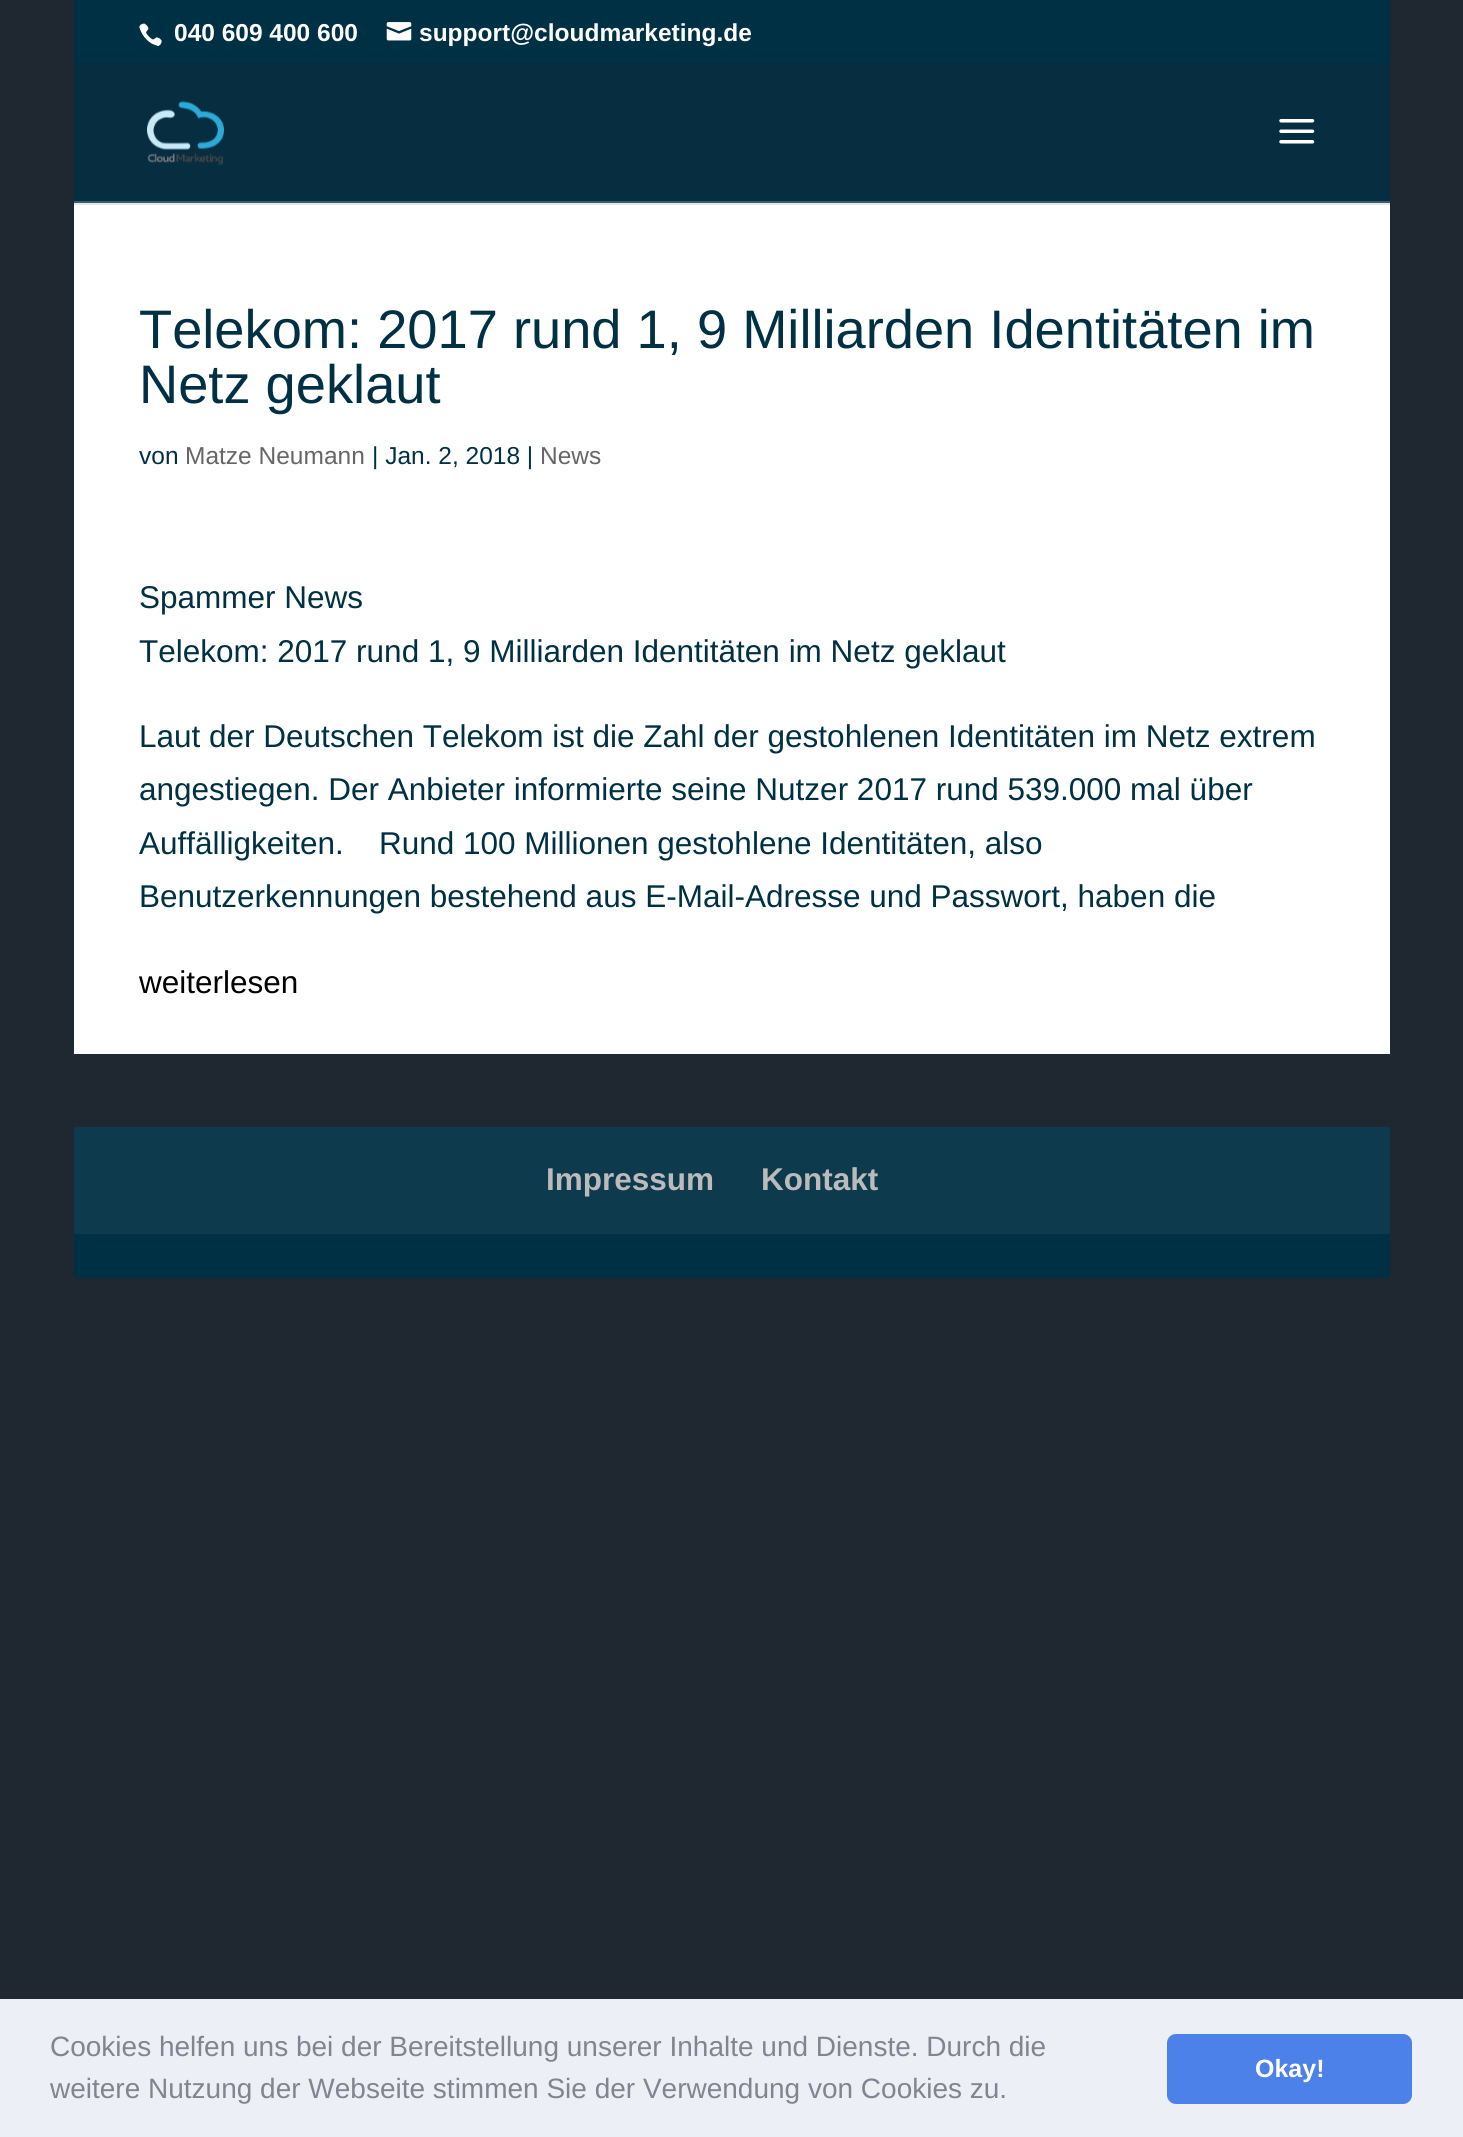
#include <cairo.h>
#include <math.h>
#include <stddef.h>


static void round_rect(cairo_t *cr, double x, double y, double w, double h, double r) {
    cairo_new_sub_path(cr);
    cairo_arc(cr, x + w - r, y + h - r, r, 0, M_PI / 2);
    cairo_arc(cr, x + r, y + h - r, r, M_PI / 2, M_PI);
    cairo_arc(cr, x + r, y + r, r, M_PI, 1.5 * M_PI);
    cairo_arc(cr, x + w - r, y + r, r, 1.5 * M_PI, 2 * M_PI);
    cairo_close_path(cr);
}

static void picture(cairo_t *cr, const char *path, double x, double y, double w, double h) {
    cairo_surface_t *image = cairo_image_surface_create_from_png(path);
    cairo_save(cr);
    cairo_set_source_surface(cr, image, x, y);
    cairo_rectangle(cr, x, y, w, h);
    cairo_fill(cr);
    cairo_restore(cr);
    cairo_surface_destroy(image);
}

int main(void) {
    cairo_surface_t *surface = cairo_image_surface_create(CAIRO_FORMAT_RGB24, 1463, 2137);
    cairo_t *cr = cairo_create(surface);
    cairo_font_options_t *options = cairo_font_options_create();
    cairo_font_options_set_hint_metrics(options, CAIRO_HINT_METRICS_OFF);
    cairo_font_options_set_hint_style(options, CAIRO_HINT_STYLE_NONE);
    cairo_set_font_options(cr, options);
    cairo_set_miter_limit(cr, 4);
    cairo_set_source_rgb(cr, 0.122, 0.157, 0.188);
    cairo_paint(cr);
    cairo_set_source_rgb(cr, 0, 0.188, 0.267);
    cairo_rectangle(cr, 74, 0, 1316, 63);
    cairo_fill(cr);
    picture(cr, "img1.png", 139, 23, 23, 23);
    cairo_select_font_face(cr, "Liberation Sans", CAIRO_FONT_SLANT_NORMAL, CAIRO_FONT_WEIGHT_BOLD);
    cairo_set_font_size(cr, 24.5);
    cairo_set_source_rgb(cr, 1, 1, 1);
    cairo_move_to(cr, 174, 41);
    cairo_show_text(cr, "040 609 400 600");
    picture(cr, "img2.png", 386, 22, 26, 19);
    cairo_move_to(cr, 419, 41);
    cairo_show_text(cr, "support@cloudmarketing.de");
    cairo_rectangle(cr, 74, 201, 1316, 853);
    cairo_fill(cr);
    cairo_set_source_rgb(cr, 0.902, 0.902, 0.902);
    cairo_new_path(cr);
    cairo_move_to(cr, 74, 203);
    cairo_line_to(cr, 74, 205);
    cairo_line_to(cr, 1390, 205);
    cairo_line_to(cr, 1390, 65);
    cairo_line_to(cr, 1390, 203);
    cairo_close_path(cr);
    cairo_fill(cr);
    cairo_set_source_rgba(cr, 0, 0.188, 0.267, 0.78);
    cairo_rectangle(cr, 74, 63, 1316, 140);
    cairo_fill(cr);
    picture(cr, "img3.png", 147, 101, 77, 64);
    picture(cr, "img4.png", 1279, 119, 36, 25);
    cairo_select_font_face(cr, "Liberation Sans", CAIRO_FONT_SLANT_NORMAL, CAIRO_FONT_WEIGHT_NORMAL);
    cairo_set_font_size(cr, 54.25);
    cairo_set_source_rgb(cr, 0, 0.188, 0.267);
    cairo_move_to(cr, 139, 348);
    cairo_show_text(cr, "Telekom: 2017 rund 1, 9 Milliarden Identitäten im");
    cairo_move_to(cr, 139, 403);
    cairo_show_text(cr, "Netz geklaut");
    cairo_set_font_size(cr, 24.5);
    cairo_move_to(cr, 139, 464);
    cairo_show_text(cr, "von");
    cairo_set_source_rgb(cr, 0.4, 0.4, 0.4);
    cairo_move_to(cr, 185, 464);
    cairo_show_text(cr, "Matze Neumann");
    cairo_set_source_rgb(cr, 0, 0.188, 0.267);
    cairo_move_to(cr, 372, 464);
    cairo_show_text(cr, "| Jan. 2, 2018 |");
    cairo_set_source_rgb(cr, 0.4, 0.4, 0.4);
    cairo_move_to(cr, 540, 464);
    cairo_show_text(cr, "News");
    cairo_set_font_size(cr, 31.5);
    cairo_set_source_rgb(cr, 0, 0.188, 0.267);
    cairo_move_to(cr, 139, 608);
    cairo_show_text(cr, "Spammer News");
    cairo_move_to(cr, 139, 662);
    cairo_show_text(cr, "Telekom: 2017 rund 1, 9 Milliarden Identitäten im Netz geklaut");
    cairo_move_to(cr, 139, 747);
    cairo_show_text(cr, "Laut der Deutschen Telekom ist die Zahl der gestohlenen Identitäten im Netz extrem");
    cairo_move_to(cr, 139, 800);
    cairo_show_text(cr, "angestiegen. Der Anbieter informierte seine Nutzer 2017 rund 539.000 mal über");
    cairo_move_to(cr, 139, 854);
    cairo_show_text(cr, "Auffälligkeiten.    Rund 100 Millionen gestohlene Identitäten, also");
    cairo_move_to(cr, 139, 907);
    cairo_show_text(cr, "Benutzerkennungen bestehend aus E-Mail-Adresse und Passwort, haben die");
    cairo_set_source_rgb(cr, 0, 0, 0);
    cairo_move_to(cr, 139, 993);
    cairo_show_text(cr, "weiterlesen");
    cairo_set_source_rgb(cr, 0, 0.188, 0.267);
    cairo_rectangle(cr, 74, 1234, 1316, 44);
    cairo_fill(cr);
    cairo_set_source_rgb(cr, 0.051, 0.227, 0.302);
    cairo_rectangle(cr, 74, 1127, 1316, 107);
    cairo_fill(cr);
    cairo_select_font_face(cr, "Liberation Sans", CAIRO_FONT_SLANT_NORMAL, CAIRO_FONT_WEIGHT_BOLD);
    cairo_set_source_rgb(cr, 0.733, 0.733, 0.733);
    cairo_move_to(cr, 546, 1190);
    cairo_show_text(cr, "Impressum");
    cairo_move_to(cr, 761, 1190);
    cairo_show_text(cr, "Kontakt");
    cairo_set_source_rgb(cr, 0.929, 0.937, 0.961);
    cairo_rectangle(cr, 0, 1999, 1463, 138);
    cairo_fill(cr);
    cairo_select_font_face(cr, "Liberation Sans", CAIRO_FONT_SLANT_NORMAL, CAIRO_FONT_WEIGHT_NORMAL);
    cairo_set_font_size(cr, 28);
    cairo_set_source_rgb(cr, 0.514, 0.514, 0.569);
    cairo_move_to(cr, 50, 2056);
    cairo_show_text(cr, "Cookies helfen uns bei der Bereitstellung unserer Inhalte und Dienste. Durch die");
    cairo_move_to(cr, 50, 2098);
    cairo_show_text(cr, "weitere Nutzung der Webseite stimmen Sie der Verwendung von Cookies zu.");
    cairo_set_source_rgb(cr, 0.294, 0.506, 0.91);
    round_rect(cr, 1167, 2034, 245, 70, 9);
    cairo_fill(cr);
    cairo_select_font_face(cr, "Liberation Sans", CAIRO_FONT_SLANT_NORMAL, CAIRO_FONT_WEIGHT_BOLD);
    cairo_set_font_size(cr, 25);
    cairo_set_source_rgb(cr, 1, 1, 1);
    cairo_move_to(cr, 1255, 2077);
    cairo_show_text(cr, "Okay!");
    cairo_surface_write_to_png(surface, "page.png");
    cairo_font_options_destroy(options);
    cairo_destroy(cr);
    cairo_surface_destroy(surface);
    return 0;
}
